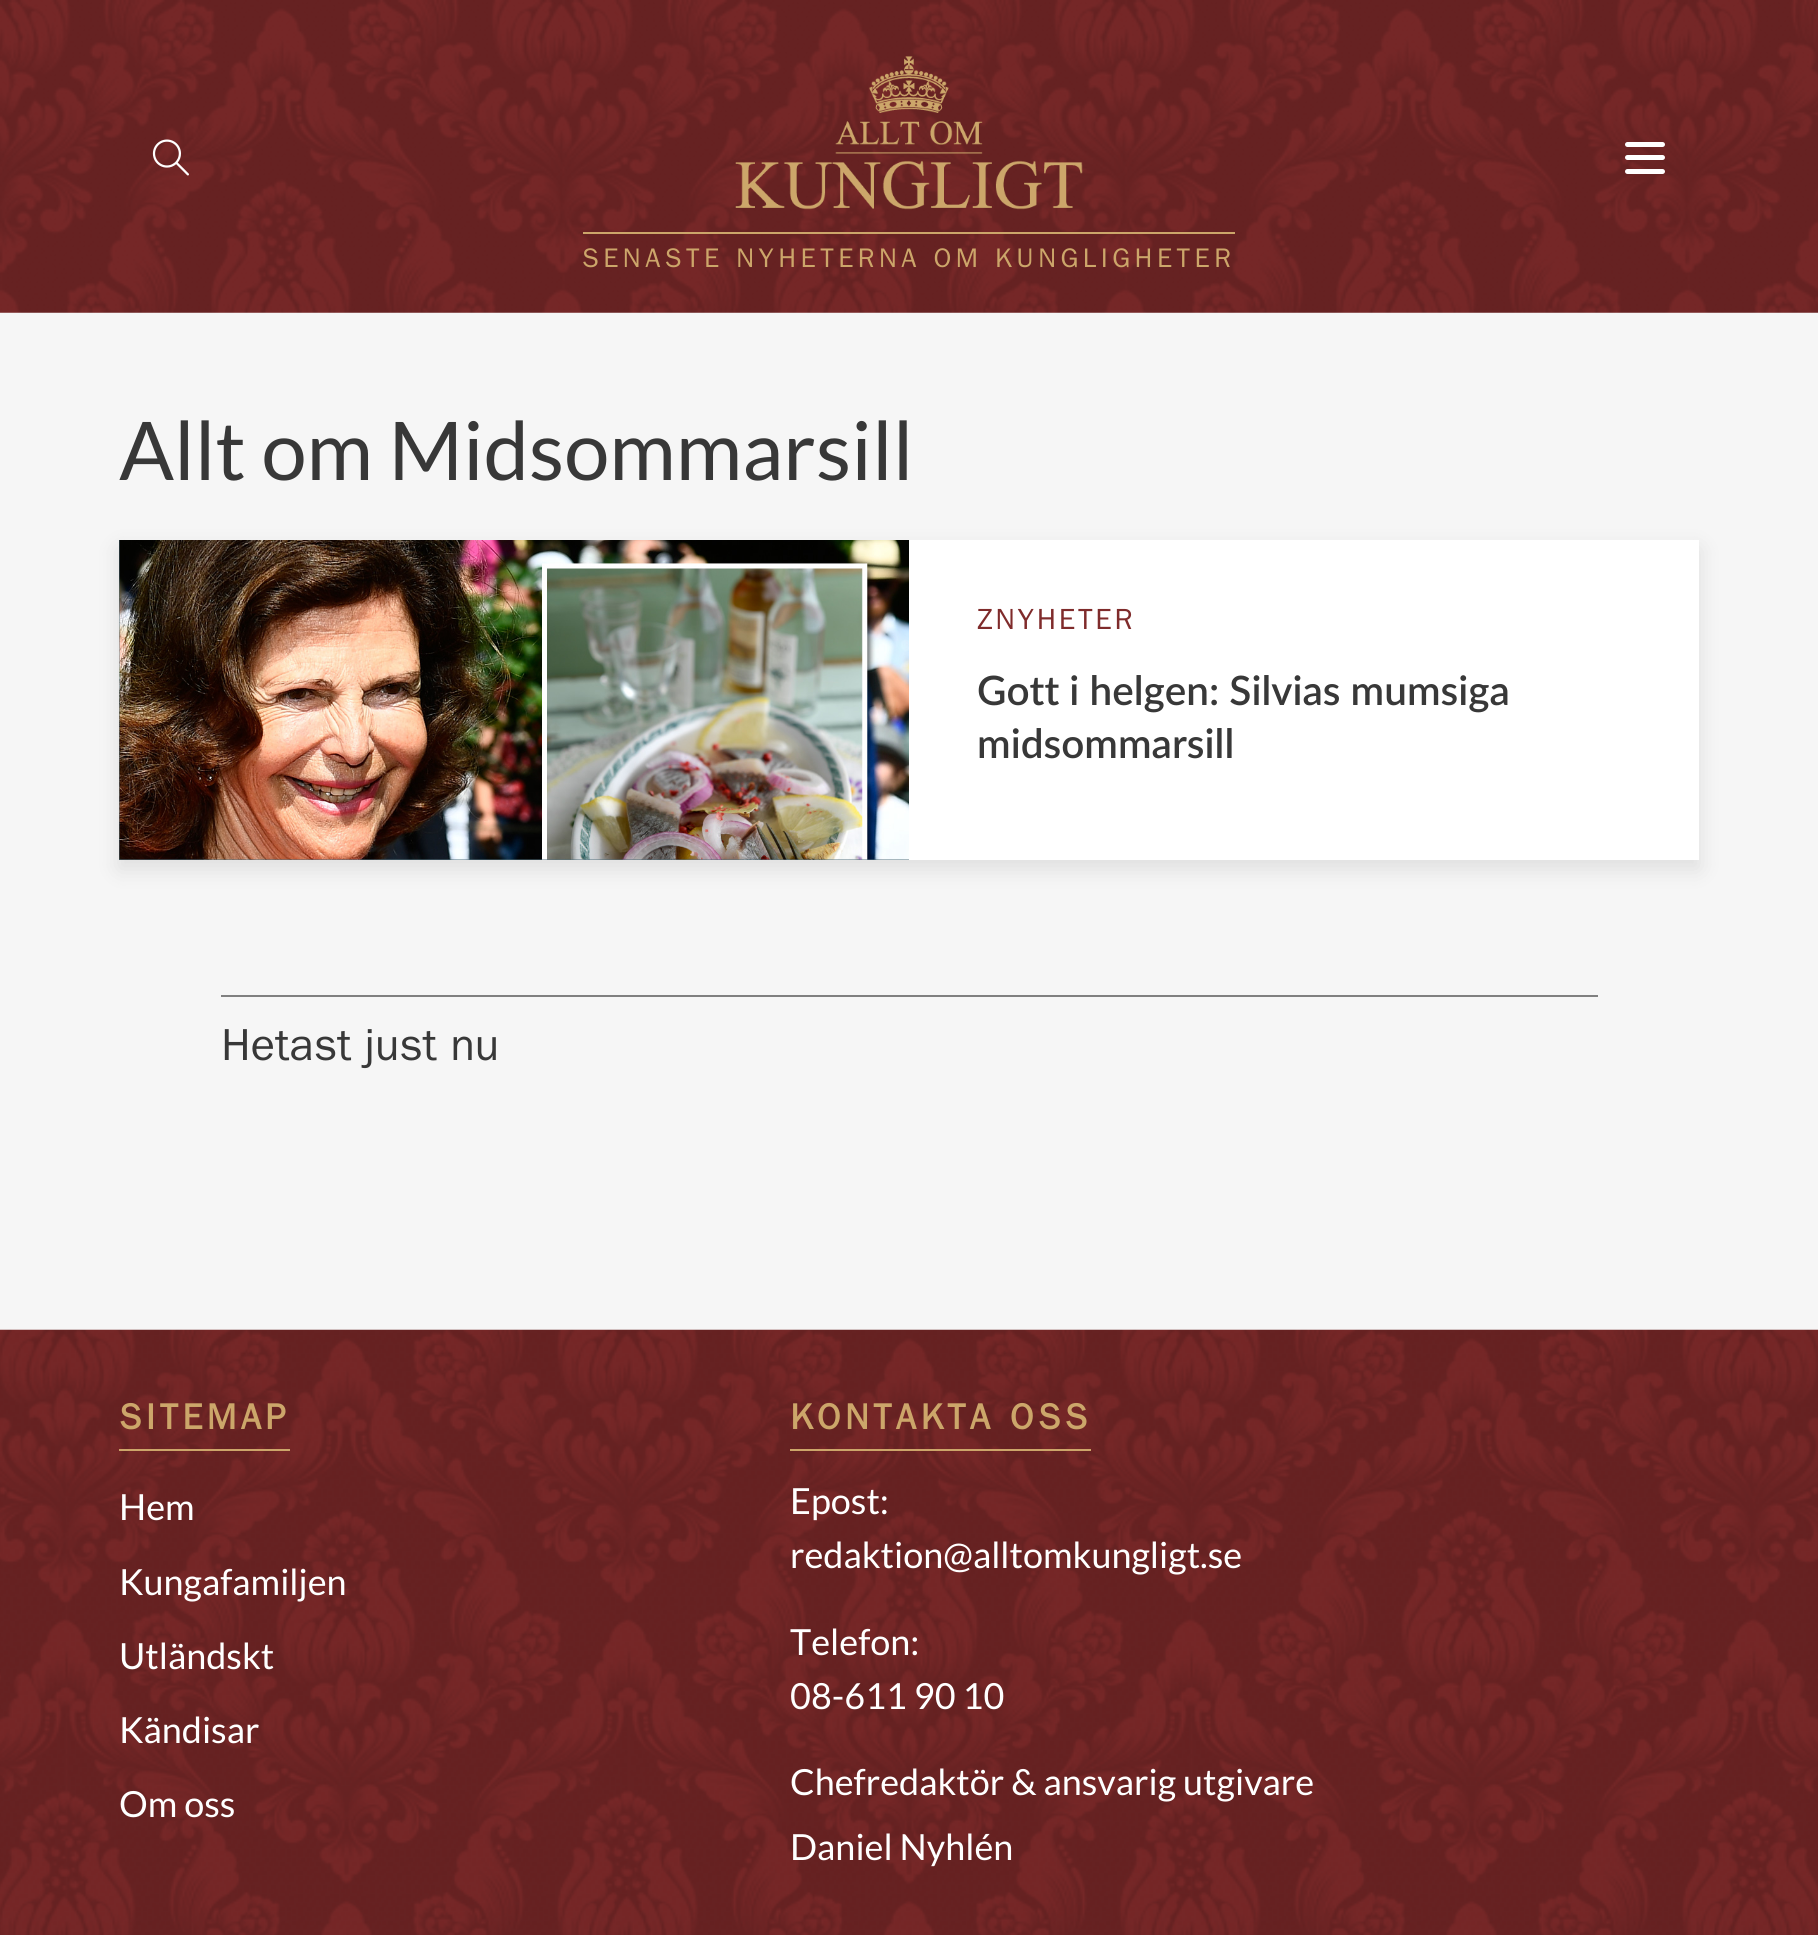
#include <cairo.h>
#include <math.h>
#include <stddef.h>


static void spaced_text(cairo_t *cr, double x, double y, const char *s, double letter, double word) {
    cairo_move_to(cr, x, y);
    while (*s) {
        char ch[5] = {0};
        int n = 0;
        do ch[n++] = *s++; while ((*s & 0xC0) == 0x80);
        cairo_show_text(cr, ch);
        cairo_rel_move_to(cr, letter + word * (*ch == ' '), 0);
    }
}

static void round_rect(cairo_t *cr, double x, double y, double w, double h, double r) {
    cairo_new_sub_path(cr);
    cairo_arc(cr, x + w - r, y + h - r, r, 0, M_PI / 2);
    cairo_arc(cr, x + r, y + h - r, r, M_PI / 2, M_PI);
    cairo_arc(cr, x + r, y + r, r, M_PI, 1.5 * M_PI);
    cairo_arc(cr, x + w - r, y + r, r, 1.5 * M_PI, 2 * M_PI);
    cairo_close_path(cr);
}

static void shadow(cairo_t *cr, double x, double y, double w, double h, double r, double blur, double alpha) {
    cairo_push_group_with_content(cr, CAIRO_CONTENT_ALPHA);
    cairo_set_operator(cr, CAIRO_OPERATOR_SOURCE);
    for (int i = 15; i >= -15 && fmin(w, h) + blur * i / 3 > 0; i -= 2) {
        double e = blur * i / 6;
        cairo_set_source_rgba(cr, 0, 0, 0, alpha * erfc((i - 1) / 8.5) / 2);
        round_rect(cr, x - e, y - e, w + 2 * e, h + 2 * e, fmax(0, fmin(r + e + blur * .6, fmin(w, h) / 2 + e)));
        cairo_fill(cr);
    }
    cairo_pattern_t *soft = cairo_pop_group(cr);
    cairo_mask(cr, soft);
    cairo_pattern_destroy(soft);
}

static void picture(cairo_t *cr, const char *path, double x, double y, double w, double h) {
    cairo_surface_t *image = cairo_image_surface_create_from_png(path);
    cairo_save(cr);
    cairo_set_source_surface(cr, image, x, y);
    cairo_rectangle(cr, x, y, w, h);
    cairo_fill(cr);
    cairo_restore(cr);
    cairo_surface_destroy(image);
}

int main(void) {
    cairo_surface_t *surface = cairo_image_surface_create(CAIRO_FORMAT_RGB24, 1818, 1935);
    cairo_t *cr = cairo_create(surface);
    cairo_font_options_t *options = cairo_font_options_create();
    cairo_font_options_set_hint_metrics(options, CAIRO_HINT_METRICS_OFF);
    cairo_font_options_set_hint_style(options, CAIRO_HINT_STYLE_NONE);
    cairo_set_font_options(cr, options);
    cairo_set_miter_limit(cr, 4);
    cairo_set_source_rgb(cr, 0.961, 0.961, 0.961);
    cairo_paint(cr);
    picture(cr, "img1.png", 0, 0, 1818, 313);
    picture(cr, "img2.png", 152, 139, 37, 37);
    cairo_set_source_rgb(cr, 1, 1, 1);
    round_rect(cr, 1625, 142, 40, 5, 2.5);
    cairo_fill(cr);
    round_rect(cr, 1625, 155, 40, 5, 2.5);
    cairo_fill(cr);
    round_rect(cr, 1625, 169, 40, 5, 2.5);
    cairo_fill(cr);
    picture(cr, "img3.png", 735, 56, 348, 154);
    cairo_set_source_rgb(cr, 0.8, 0.651, 0.416);
    cairo_rectangle(cr, 583, 232, 652, 2);
    cairo_fill(cr);
    cairo_select_font_face(cr, "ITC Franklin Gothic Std", CAIRO_FONT_SLANT_NORMAL, CAIRO_FONT_WEIGHT_NORMAL);
    cairo_set_font_size(cr, 27);
    spaced_text(cr, 582, 267, "SENASTE NYHETERNA OM KUNGLIGHETER", 4.5, 0);
    cairo_select_font_face(cr, "Lato", CAIRO_FONT_SLANT_NORMAL, CAIRO_FONT_WEIGHT_NORMAL);
    cairo_set_font_size(cr, 81);
    cairo_set_source_rgb(cr, 0.22, 0.22, 0.22);
    cairo_move_to(cr, 119, 480);
    cairo_show_text(cr, "Allt om Midsommarsill");
    cairo_set_source_rgb(cr, 0, 0, 0);
    shadow(cr, 119, 549, 1580, 320, 0, 11, 0.1);
    cairo_set_source_rgb(cr, 1, 1, 1);
    cairo_rectangle(cr, 909, 540, 790, 320);
    cairo_fill(cr);
    cairo_set_source_rgb(cr, 0.337, 0.451, 0.494);
    cairo_rectangle(cr, 119, 540, 790, 320);
    cairo_fill(cr);
    picture(cr, "img4.png", 119, 540, 790, 320);
    cairo_select_font_face(cr, "ITC Franklin Gothic Std", CAIRO_FONT_SLANT_NORMAL, CAIRO_FONT_WEIGHT_NORMAL);
    cairo_set_font_size(cr, 29.25);
    cairo_set_source_rgb(cr, 0.498, 0.169, 0.169);
    spaced_text(cr, 977, 629, "ZNYHETER", 2.75, 0);
    cairo_select_font_face(cr, "Lato SemiBold", CAIRO_FONT_SLANT_NORMAL, CAIRO_FONT_WEIGHT_NORMAL);
    cairo_set_font_size(cr, 40.5);
    cairo_set_source_rgb(cr, 0.22, 0.22, 0.22);
    cairo_move_to(cr, 977, 705);
    cairo_show_text(cr, "Gott i helgen: Silvias mumsiga");
    cairo_move_to(cr, 977, 758);
    cairo_show_text(cr, "midsommarsill");
    cairo_set_source_rgb(cr, 0.502, 0.502, 0.502);
    cairo_rectangle(cr, 221, 995, 1377, 2);
    cairo_fill(cr);
    cairo_select_font_face(cr, "ITC Franklin Gothic Std", CAIRO_FONT_SLANT_NORMAL, CAIRO_FONT_WEIGHT_NORMAL);
    cairo_set_font_size(cr, 45);
    cairo_set_source_rgb(cr, 0.22, 0.22, 0.22);
    cairo_move_to(cr, 221, 1060);
    cairo_show_text(cr, "Hetast just nu");
    picture(cr, "img5.png", 0, 1329, 1818, 606);
    cairo_set_source_rgb(cr, 0.8, 0.651, 0.416);
    cairo_rectangle(cr, 119, 1449, 171, 2);
    cairo_fill(cr);
    cairo_select_font_face(cr, "ITC Franklin Gothic Std", CAIRO_FONT_SLANT_NORMAL, CAIRO_FONT_WEIGHT_BOLD);
    cairo_set_font_size(cr, 36);
    spaced_text(cr, 119, 1429, "SITEMAP", 4.5, 0);
    cairo_select_font_face(cr, "Lato", CAIRO_FONT_SLANT_NORMAL, CAIRO_FONT_WEIGHT_NORMAL);
    cairo_set_source_rgb(cr, 1, 1, 1);
    cairo_move_to(cr, 119, 1520);
    cairo_show_text(cr, "Hem");
    cairo_move_to(cr, 119, 1595);
    cairo_show_text(cr, "Kungafamiljen");
    cairo_move_to(cr, 119, 1669);
    cairo_show_text(cr, "Utländskt");
    cairo_move_to(cr, 119, 1743);
    cairo_show_text(cr, "Kändisar");
    cairo_move_to(cr, 119, 1817);
    cairo_show_text(cr, "Om oss");
    cairo_set_source_rgb(cr, 0.8, 0.651, 0.416);
    cairo_rectangle(cr, 790, 1449, 301, 2);
    cairo_fill(cr);
    cairo_select_font_face(cr, "ITC Franklin Gothic Std", CAIRO_FONT_SLANT_NORMAL, CAIRO_FONT_WEIGHT_BOLD);
    spaced_text(cr, 790, 1429, "KONTAKTA OSS", 4.5, 0);
    cairo_select_font_face(cr, "Lato", CAIRO_FONT_SLANT_NORMAL, CAIRO_FONT_WEIGHT_NORMAL);
    cairo_set_source_rgb(cr, 1, 1, 1);
    cairo_move_to(cr, 790, 1514);
    cairo_show_text(cr, "Epost:");
    cairo_move_to(cr, 790, 1568);
    cairo_show_text(cr, "redaktion@alltomkungligt.se");
    cairo_move_to(cr, 790, 1655);
    cairo_show_text(cr, "Telefon:");
    cairo_move_to(cr, 790, 1709);
    cairo_show_text(cr, "08-611 90 10");
    cairo_move_to(cr, 790, 1795);
    cairo_show_text(cr, "Chefredaktör & ansvarig utgivare");
    cairo_move_to(cr, 790, 1860);
    cairo_show_text(cr, "Daniel Nyhlén");
    cairo_surface_write_to_png(surface, "page.png");
    cairo_font_options_destroy(options);
    cairo_destroy(cr);
    cairo_surface_destroy(surface);
    return 0;
}
